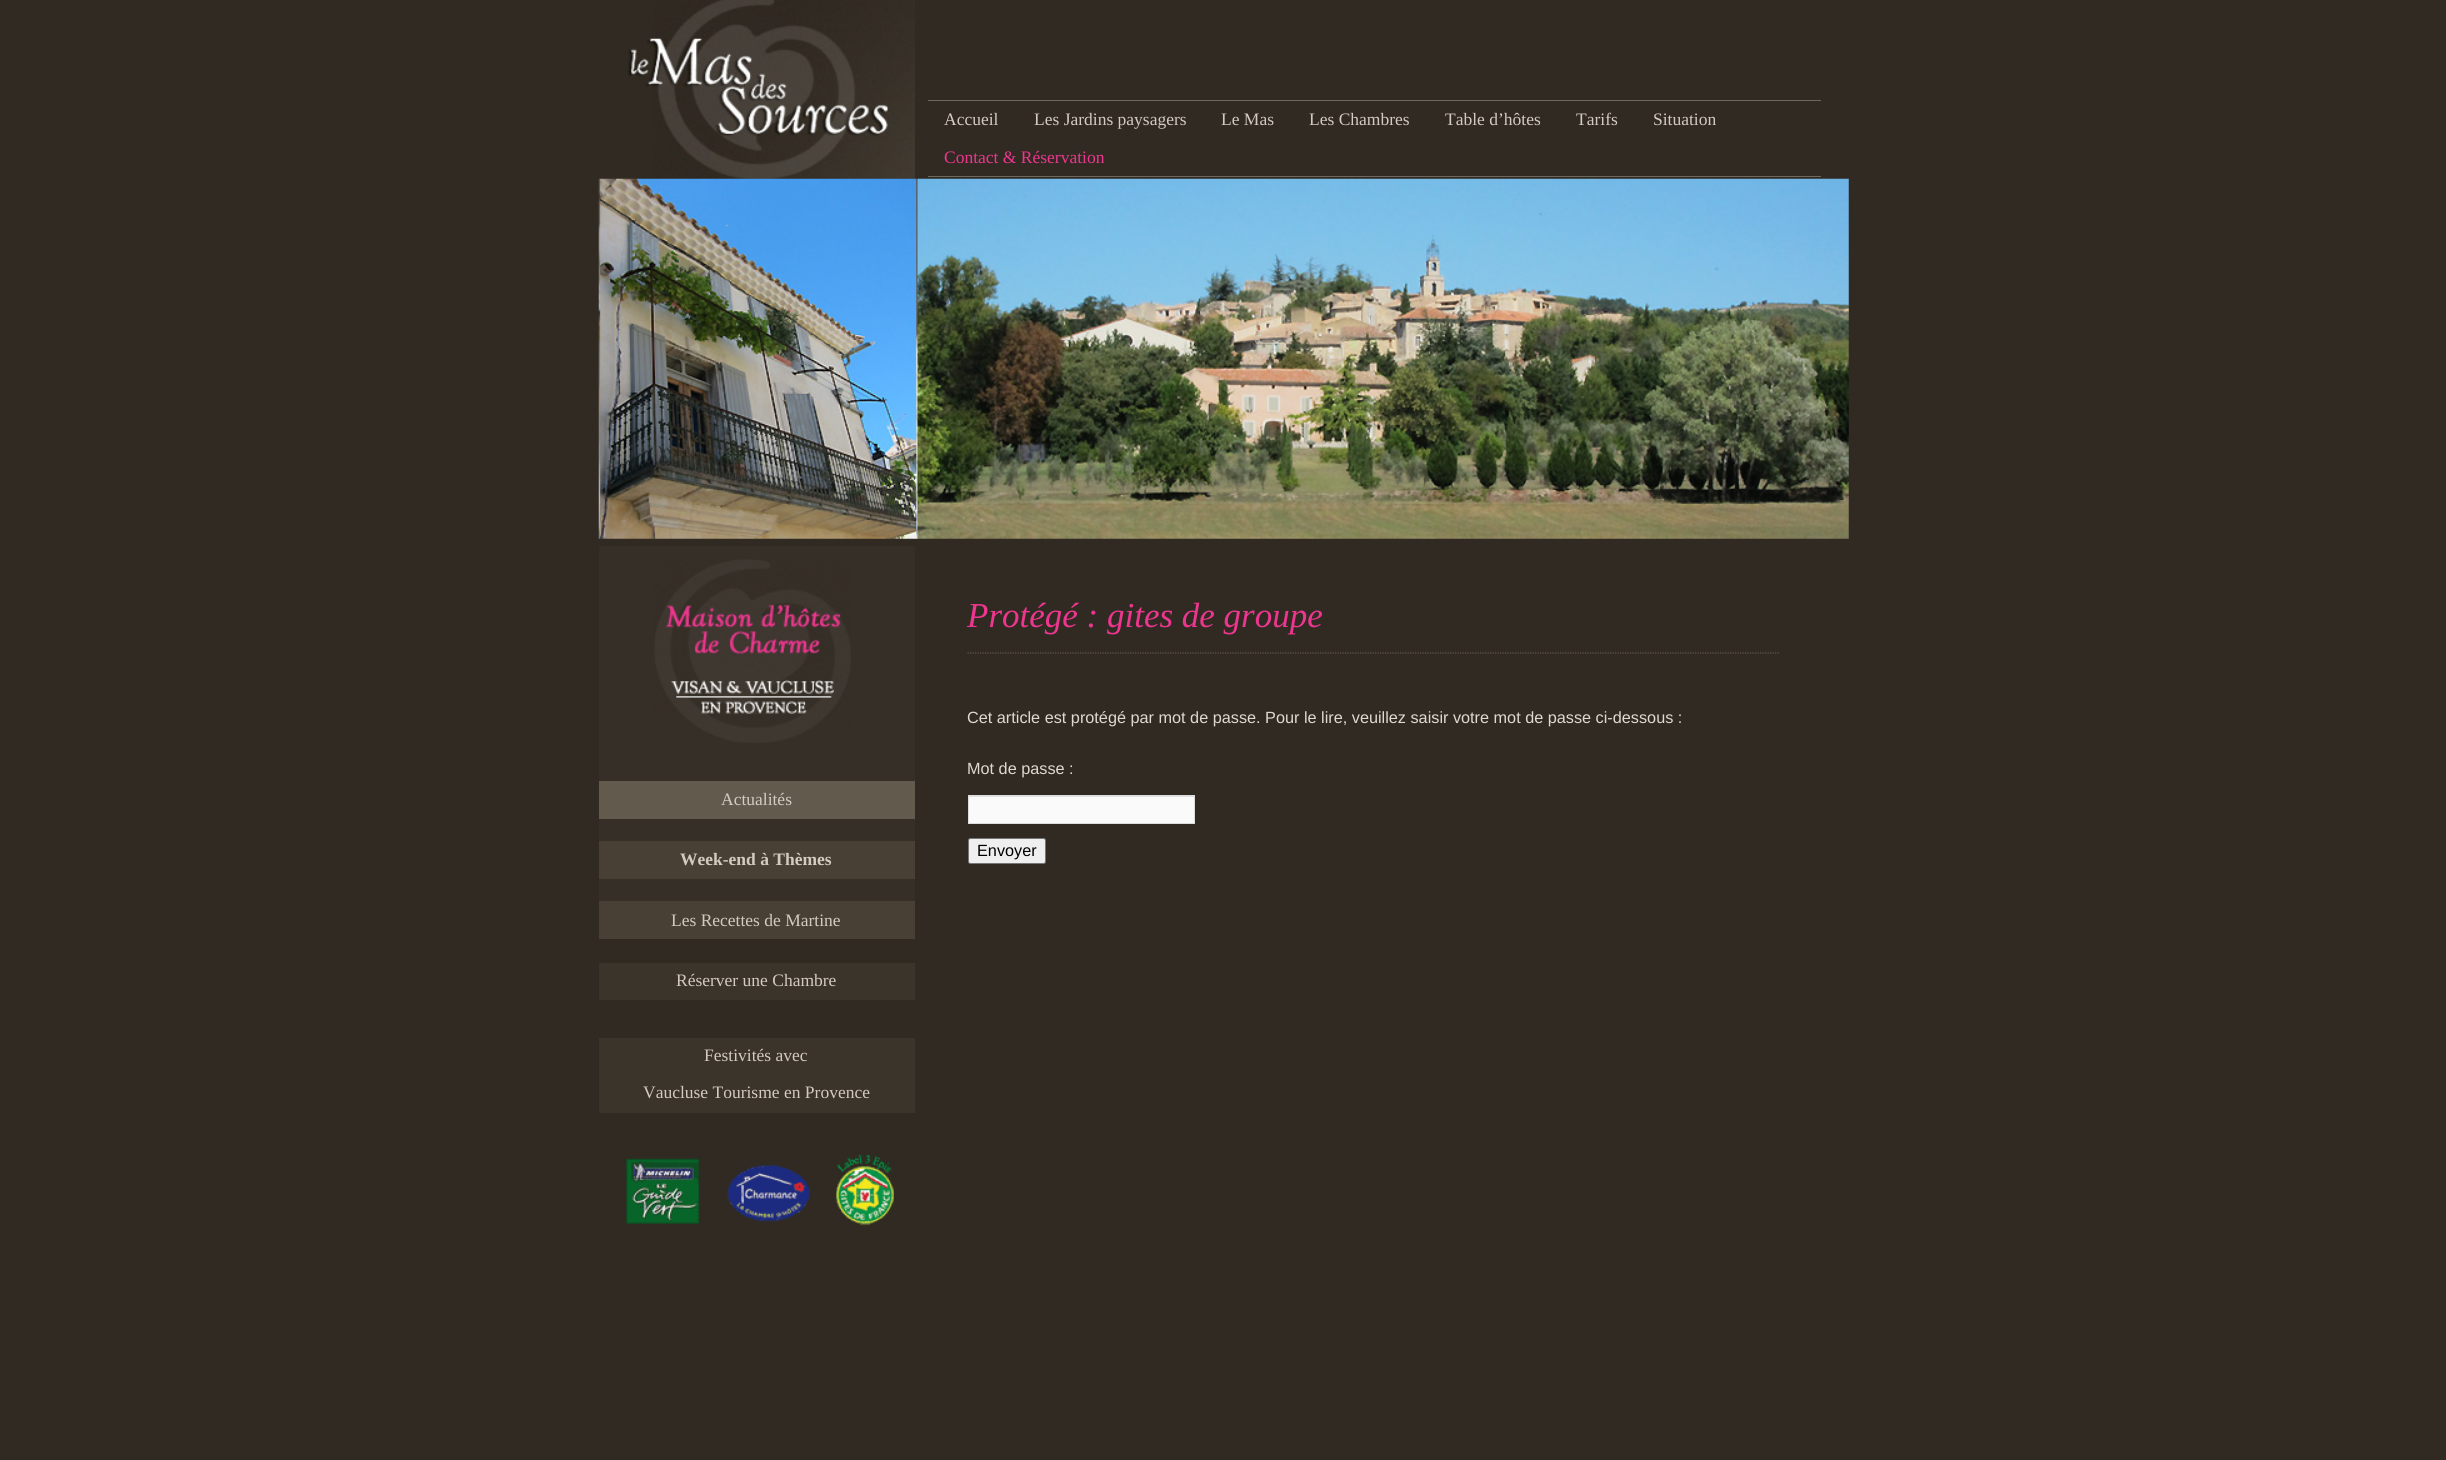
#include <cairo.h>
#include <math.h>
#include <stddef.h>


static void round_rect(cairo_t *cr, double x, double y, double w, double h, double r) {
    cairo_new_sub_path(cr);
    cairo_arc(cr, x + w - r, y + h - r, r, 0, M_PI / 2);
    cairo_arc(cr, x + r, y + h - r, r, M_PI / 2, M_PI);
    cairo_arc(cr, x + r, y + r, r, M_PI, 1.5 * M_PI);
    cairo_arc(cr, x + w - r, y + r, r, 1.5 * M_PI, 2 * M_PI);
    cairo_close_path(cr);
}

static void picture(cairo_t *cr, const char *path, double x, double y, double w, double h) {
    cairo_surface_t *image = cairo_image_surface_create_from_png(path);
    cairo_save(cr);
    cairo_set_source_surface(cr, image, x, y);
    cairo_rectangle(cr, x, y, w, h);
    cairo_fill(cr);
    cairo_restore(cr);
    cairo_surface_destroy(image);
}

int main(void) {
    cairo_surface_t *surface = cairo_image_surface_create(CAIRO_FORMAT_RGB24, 2446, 1460);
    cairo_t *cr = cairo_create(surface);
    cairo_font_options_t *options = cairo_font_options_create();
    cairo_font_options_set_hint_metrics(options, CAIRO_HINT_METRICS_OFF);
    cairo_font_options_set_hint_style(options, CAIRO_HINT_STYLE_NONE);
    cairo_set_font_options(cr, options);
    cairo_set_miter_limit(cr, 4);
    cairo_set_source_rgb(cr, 0.192, 0.165, 0.133);
    cairo_paint(cr);
    picture(cr, "img1.png", 628, 0, 287, 179);
    cairo_set_source_rgb(cr, 0.424, 0.408, 0.365);
    cairo_rectangle(cr, 928, 100, 893, 1);
    cairo_fill(cr);
    cairo_rectangle(cr, 928, 176, 893, 1);
    cairo_fill(cr);
    cairo_select_font_face(cr, "Liberation Serif", CAIRO_FONT_SLANT_NORMAL, CAIRO_FONT_WEIGHT_NORMAL);
    cairo_set_font_size(cr, 17.5);
    cairo_set_source_rgb(cr, 0.827, 0.796, 0.757);
    cairo_move_to(cr, 944, 125);
    cairo_show_text(cr, "Accueil");
    cairo_move_to(cr, 1034, 125);
    cairo_show_text(cr, "Les Jardins paysagers");
    cairo_move_to(cr, 1221, 125);
    cairo_show_text(cr, "Le Mas");
    cairo_move_to(cr, 1309, 125);
    cairo_show_text(cr, "Les Chambres");
    cairo_move_to(cr, 1445, 125);
    cairo_show_text(cr, "Table d’hôtes");
    cairo_move_to(cr, 1576, 125);
    cairo_show_text(cr, "Tarifs");
    cairo_move_to(cr, 1653, 125);
    cairo_show_text(cr, "Situation");
    cairo_set_source_rgb(cr, 0.929, 0.212, 0.561);
    cairo_move_to(cr, 944, 163);
    cairo_show_text(cr, "Contact & Réservation");
    picture(cr, "img2.png", 598, 178, 1251, 361);
    cairo_new_path(cr);
    cairo_move_to(cr, 967.5, 653);
    cairo_line_to(cr, 1780, 653);
    cairo_set_source_rgb(cr, 0.38, 0.345, 0.302);
    cairo_set_line_width(cr, 1.2);
    cairo_set_dash(cr, (double[]){1.25, 1.25}, 2, 0);
    cairo_stroke(cr);
    cairo_select_font_face(cr, "Liberation Serif", CAIRO_FONT_SLANT_ITALIC, CAIRO_FONT_WEIGHT_NORMAL);
    cairo_set_font_size(cr, 35);
    cairo_set_source_rgb(cr, 0.929, 0.212, 0.561);
    cairo_move_to(cr, 967, 627);
    cairo_show_text(cr, "Protégé : gites de groupe");
    cairo_select_font_face(cr, "Liberation Sans", CAIRO_FONT_SLANT_NORMAL, CAIRO_FONT_WEIGHT_NORMAL);
    cairo_set_font_size(cr, 16.25);
    cairo_set_source_rgb(cr, 0.875, 0.851, 0.82);
    cairo_move_to(cr, 967, 723);
    cairo_show_text(cr, "Cet article est protégé par mot de passe. Pour le lire, veuillez saisir votre mot de passe ci-dessous :");
    cairo_move_to(cr, 967, 774);
    cairo_show_text(cr, "Mot de passe :");
    cairo_set_source_rgb(cr, 0.98, 0.98, 0.98);
    cairo_rectangle(cr, 969, 797, 225, 26);
    cairo_fill(cr);
    cairo_set_source_rgb(cr, 0.882, 0.882, 0.882);
    cairo_rectangle(cr, 969, 796, 225, 1);
    cairo_fill(cr);
    cairo_rectangle(cr, 968.5, 795.5, 226, 28);
    cairo_set_source_rgb(cr, 0.867, 0.867, 0.867);
    cairo_set_line_width(cr, 1);
    cairo_set_dash(cr, NULL, 0, 0);
    cairo_stroke(cr);
    cairo_set_source_rgb(cr, 0.937, 0.937, 0.937);
    round_rect(cr, 968.5, 838.5, 77, 25, 2);
    cairo_fill_preserve(cr);
    cairo_set_source_rgb(cr, 0.463, 0.463, 0.463);
    cairo_stroke(cr);
    cairo_set_source_rgb(cr, 0, 0, 0);
    cairo_move_to(cr, 977, 856);
    cairo_show_text(cr, "Envoyer");
    cairo_set_source_rgb(cr, 0.212, 0.184, 0.153);
    cairo_rectangle(cr, 599, 546, 316, 355);
    cairo_fill(cr);
    picture(cr, "img3.png", 654, 559, 197, 184);
    cairo_set_source_rgb(cr, 0.388, 0.353, 0.306);
    cairo_rectangle(cr, 599, 781, 316, 38);
    cairo_fill(cr);
    cairo_select_font_face(cr, "Liberation Serif", CAIRO_FONT_SLANT_NORMAL, CAIRO_FONT_WEIGHT_NORMAL);
    cairo_set_font_size(cr, 17.5);
    cairo_set_source_rgb(cr, 0.827, 0.796, 0.757);
    cairo_move_to(cr, 721, 805);
    cairo_show_text(cr, "Actualités");
    cairo_set_source_rgb(cr, 0.282, 0.251, 0.208);
    cairo_rectangle(cr, 599, 841, 316, 38);
    cairo_fill(cr);
    cairo_select_font_face(cr, "Liberation Serif", CAIRO_FONT_SLANT_NORMAL, CAIRO_FONT_WEIGHT_BOLD);
    cairo_set_source_rgb(cr, 0.827, 0.796, 0.757);
    cairo_move_to(cr, 680, 865);
    cairo_show_text(cr, "Week-end à Thèmes");
    cairo_set_source_rgb(cr, 0.282, 0.251, 0.208);
    cairo_rectangle(cr, 599, 901, 316, 38);
    cairo_fill(cr);
    cairo_select_font_face(cr, "Liberation Serif", CAIRO_FONT_SLANT_NORMAL, CAIRO_FONT_WEIGHT_NORMAL);
    cairo_set_source_rgb(cr, 0.827, 0.796, 0.757);
    cairo_move_to(cr, 671, 926);
    cairo_show_text(cr, "Les Recettes de Martine");
    cairo_set_source_rgb(cr, 0.231, 0.204, 0.165);
    cairo_rectangle(cr, 599, 963, 316, 37);
    cairo_fill(cr);
    cairo_set_source_rgb(cr, 0.827, 0.796, 0.757);
    cairo_move_to(cr, 676, 986);
    cairo_show_text(cr, "Réserver une Chambre");
    cairo_set_source_rgb(cr, 0.231, 0.204, 0.165);
    cairo_rectangle(cr, 599, 1038, 316, 75);
    cairo_fill(cr);
    cairo_set_source_rgb(cr, 0.827, 0.796, 0.757);
    cairo_move_to(cr, 704, 1061);
    cairo_show_text(cr, "Festivités avec");
    cairo_move_to(cr, 643, 1098);
    cairo_show_text(cr, "Vaucluse Tourisme en Provence");
    picture(cr, "img4.png", 626, 1155, 268, 71);
    cairo_surface_write_to_png(surface, "page.png");
    cairo_font_options_destroy(options);
    cairo_destroy(cr);
    cairo_surface_destroy(surface);
    return 0;
}
